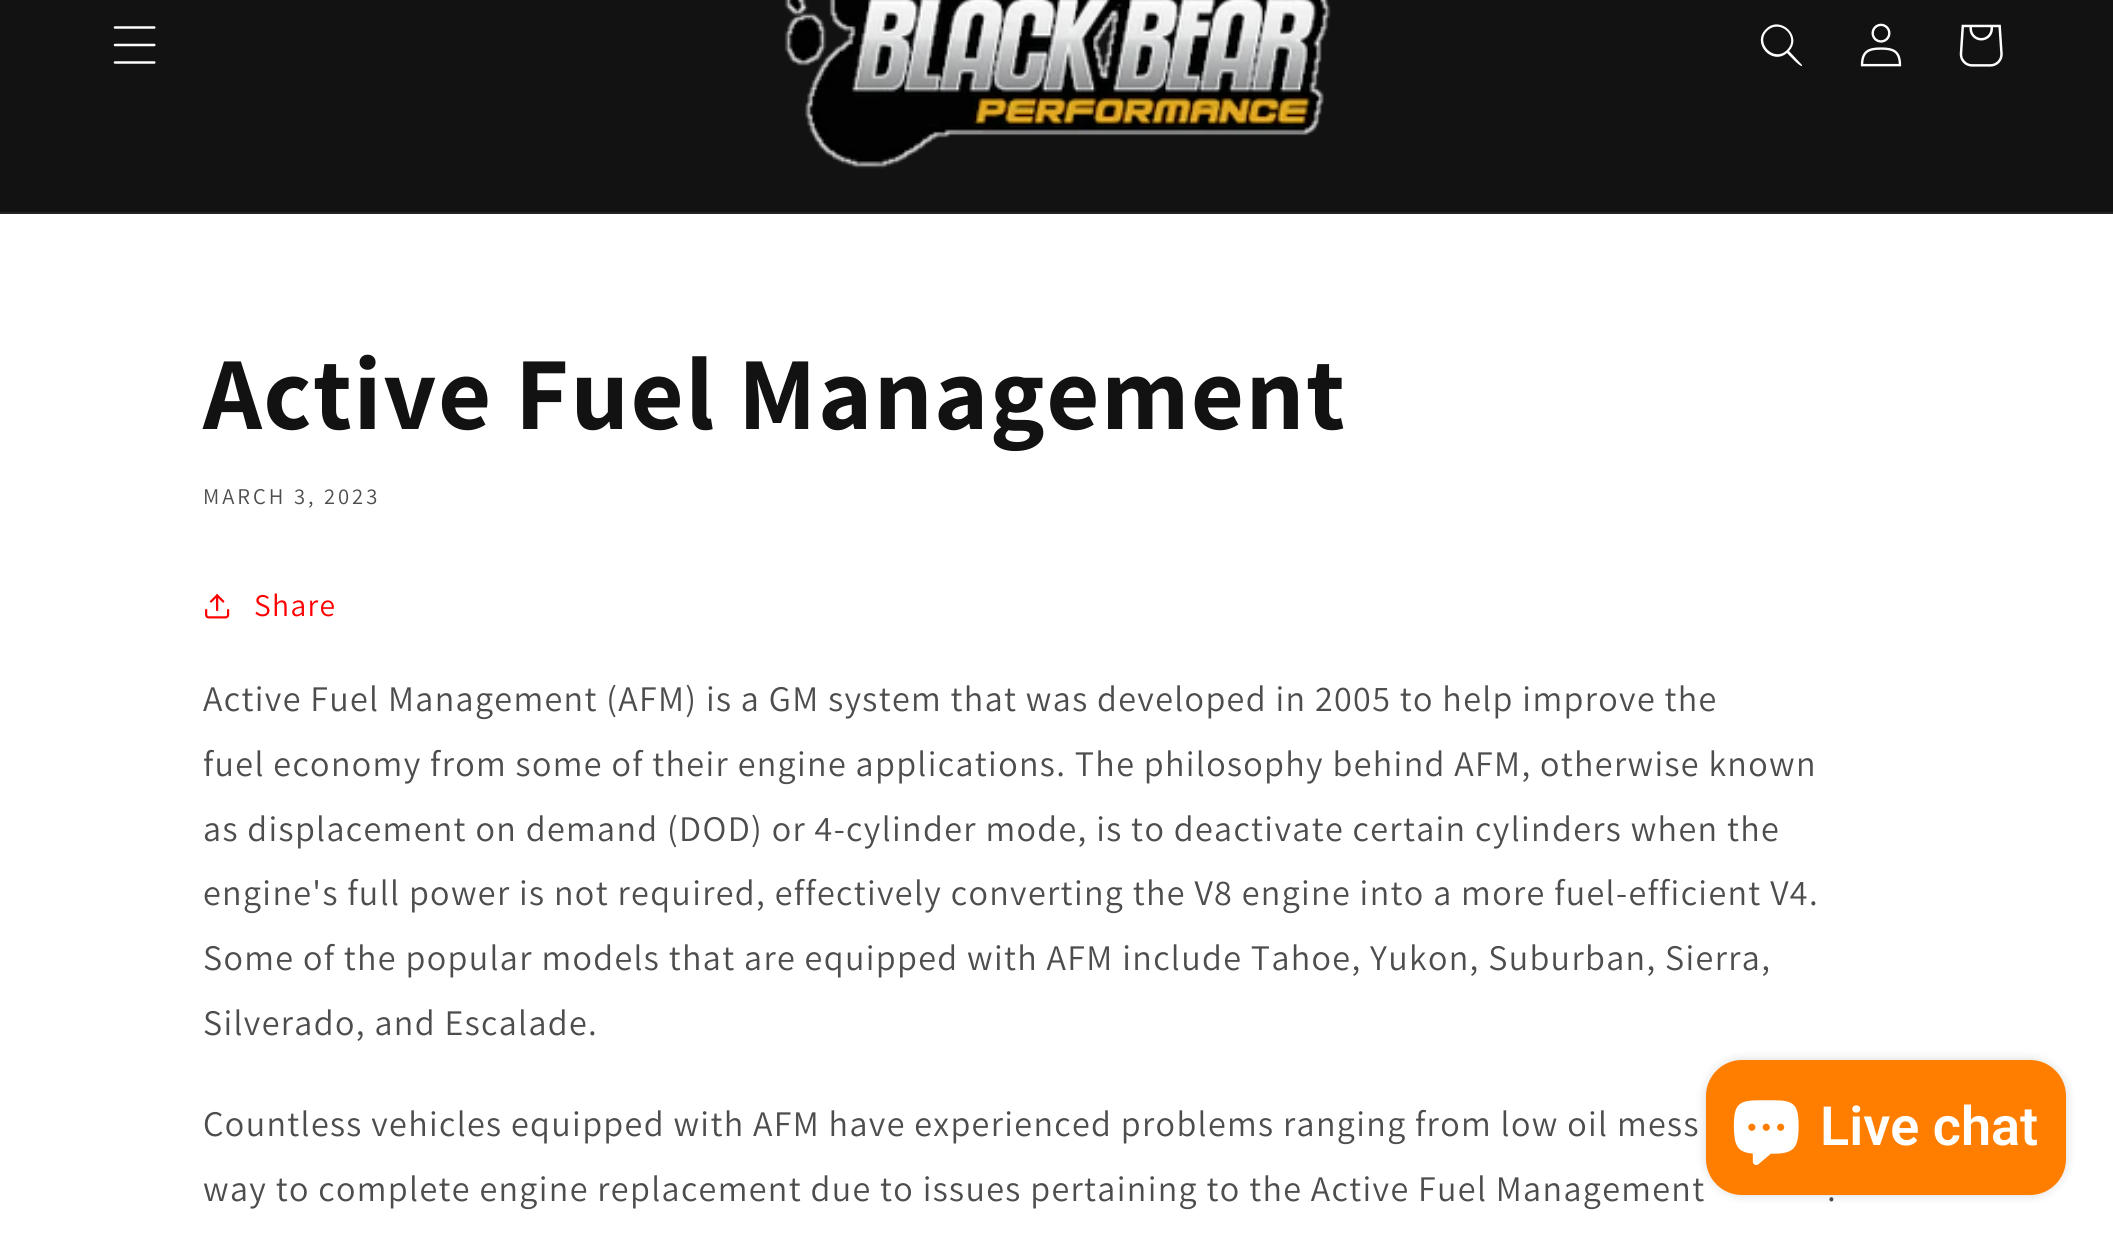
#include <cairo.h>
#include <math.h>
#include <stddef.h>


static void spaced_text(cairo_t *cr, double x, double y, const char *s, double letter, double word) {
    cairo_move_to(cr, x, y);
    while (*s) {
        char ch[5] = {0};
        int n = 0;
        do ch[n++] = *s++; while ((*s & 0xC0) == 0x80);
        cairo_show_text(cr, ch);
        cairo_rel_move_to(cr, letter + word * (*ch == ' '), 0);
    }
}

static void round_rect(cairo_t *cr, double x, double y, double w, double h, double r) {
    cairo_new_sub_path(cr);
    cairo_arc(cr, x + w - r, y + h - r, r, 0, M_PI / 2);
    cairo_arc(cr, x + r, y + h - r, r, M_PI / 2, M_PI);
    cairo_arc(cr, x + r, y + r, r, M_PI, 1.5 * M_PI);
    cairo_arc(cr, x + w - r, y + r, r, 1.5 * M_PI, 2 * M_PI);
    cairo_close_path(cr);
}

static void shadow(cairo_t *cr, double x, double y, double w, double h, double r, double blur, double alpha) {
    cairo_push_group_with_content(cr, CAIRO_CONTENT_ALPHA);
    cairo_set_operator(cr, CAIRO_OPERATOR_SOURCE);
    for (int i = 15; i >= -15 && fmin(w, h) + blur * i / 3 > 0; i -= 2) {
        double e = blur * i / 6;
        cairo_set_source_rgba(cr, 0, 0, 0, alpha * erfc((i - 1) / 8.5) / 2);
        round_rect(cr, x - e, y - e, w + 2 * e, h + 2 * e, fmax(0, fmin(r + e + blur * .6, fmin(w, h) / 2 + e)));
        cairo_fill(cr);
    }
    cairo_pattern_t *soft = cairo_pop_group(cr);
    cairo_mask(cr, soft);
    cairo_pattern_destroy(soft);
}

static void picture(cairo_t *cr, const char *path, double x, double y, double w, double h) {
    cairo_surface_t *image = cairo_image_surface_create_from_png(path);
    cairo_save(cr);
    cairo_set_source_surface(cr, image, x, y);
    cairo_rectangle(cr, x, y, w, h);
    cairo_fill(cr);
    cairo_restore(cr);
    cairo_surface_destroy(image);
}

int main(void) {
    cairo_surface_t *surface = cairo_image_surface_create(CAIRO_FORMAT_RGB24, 2113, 1242);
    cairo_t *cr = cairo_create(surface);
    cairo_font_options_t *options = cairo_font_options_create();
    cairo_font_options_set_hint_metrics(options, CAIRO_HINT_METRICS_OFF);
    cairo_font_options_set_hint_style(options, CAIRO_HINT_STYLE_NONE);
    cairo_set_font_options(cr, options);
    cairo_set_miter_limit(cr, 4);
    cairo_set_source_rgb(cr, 1, 1, 1);
    cairo_paint(cr);
    cairo_set_source_rgb(cr, 0.071, 0.071, 0.071);
    cairo_rectangle(cr, 0, 0, 2113, 212);
    cairo_fill(cr);
    cairo_set_source_rgb(cr, 0.145, 0.145, 0.145);
    cairo_rectangle(cr, 0, 212, 2113, 2);
    cairo_fill(cr);
    picture(cr, "img1.png", 113, 26, 43, 38);
    picture(cr, "img2.png", 784, 0, 547, 169);
    cairo_set_source_rgb(cr, 1, 1, 1);
    cairo_set_fill_rule(cr, CAIRO_FILL_RULE_EVEN_ODD);
    cairo_new_path(cr);
    cairo_move_to(cr, 1787, 50);
    cairo_curve_to(cr, 1774, 63, 1755, 43, 1767, 31);
    cairo_curve_to(cr, 1780, 18, 1800, 37, 1787, 50);
    cairo_close_path(cr);
    cairo_move_to(cr, 1787, 53);
    cairo_curve_to(cr, 1772, 66, 1751, 43, 1766, 29);
    cairo_curve_to(cr, 1780, 15, 1803, 36, 1789, 51);
    cairo_line_to(cr, 1802, 65);
    cairo_line_to(cr, 1802, 66);
    cairo_curve_to(cr, 1800, 67, 1789, 55, 1787, 53);
    cairo_close_path(cr);
    cairo_fill(cr);
    picture(cr, "img3.png", 1860, 23, 42, 44);
    picture(cr, "img4.png", 1959, 24, 44, 43);
    cairo_select_font_face(cr, "Assistant", CAIRO_FONT_SLANT_NORMAL, CAIRO_FONT_WEIGHT_BOLD);
    cairo_set_font_size(cr, 103.5);
    cairo_set_source_rgb(cr, 0.071, 0.071, 0.071);
    spaced_text(cr, 203, 429, "Active Fuel Management", 1.55, 0);
    cairo_select_font_face(cr, "Assistant", CAIRO_FONT_SLANT_NORMAL, CAIRO_FONT_WEIGHT_NORMAL);
    cairo_set_font_size(cr, 22.5);
    cairo_set_source_rgb(cr, 0.302, 0.302, 0.302);
    spaced_text(cr, 203, 504, "MARCH 3, 2023", 3, 0);
    picture(cr, "img5.png", 205, 594, 25, 25);
    cairo_set_font_size(cr, 31.5);
    cairo_set_source_rgb(cr, 1, 0, 0);
    spaced_text(cr, 254, 616, "Share", 1.35, 0);
    cairo_set_font_size(cr, 36);
    cairo_set_source_rgb(cr, 0.302, 0.302, 0.302);
    spaced_text(cr, 203, 711, "Active Fuel Management (AFM) is a GM system that was developed in 2005 to help improve the", 1.35, 0);
    spaced_text(cr, 203, 776, "fuel economy from some of their engine applications. The philosophy behind AFM, otherwise known", 1.35, 0);
    spaced_text(cr, 203, 841, "as displacement on demand (DOD) or 4-cylinder mode, is to deactivate certain cylinders when the", 1.35, 0);
    spaced_text(cr, 203, 905, "engine's full power is not required, effectively converting the V8 engine into a more fuel-efficient V4.", 1.35, 0);
    spaced_text(cr, 203, 970, "Some of the popular models that are equipped with AFM include Tahoe, Yukon, Suburban, Sierra,", 1.35, 0);
    spaced_text(cr, 203, 1035, "Silverado, and Escalade.", 1.35, 0);
    spaced_text(cr, 203, 1136, "Countless vehicles equipped with AFM have experienced problems ranging from low oil mess", 1.35, 0);
    spaced_text(cr, 203, 1201, "way to complete engine replacement due to issues pertaining to the Active Fuel Management", 1.35, 0);
    spaced_text(cr, 1827, 1201, ".", 1.35, 0);
    cairo_set_source_rgb(cr, 0, 0, 0);
    shadow(cr, 1706, 1060, 360, 135, 36, 5.5, 0.15);
    cairo_set_source_rgb(cr, 1, 0.494, 0);
    round_rect(cr, 1706, 1060, 360, 135, 36);
    cairo_fill(cr);
    picture(cr, "img6.png", 1733, 1100, 66, 65);
    cairo_select_font_face(cr, "Roboto SemiBold", CAIRO_FONT_SLANT_NORMAL, CAIRO_FONT_WEIGHT_NORMAL);
    cairo_set_font_size(cr, 54);
    cairo_set_source_rgb(cr, 1, 1, 1);
    cairo_move_to(cr, 1820, 1145);
    cairo_show_text(cr, "Live chat");
    cairo_surface_write_to_png(surface, "page.png");
    cairo_font_options_destroy(options);
    cairo_destroy(cr);
    cairo_surface_destroy(surface);
    return 0;
}
